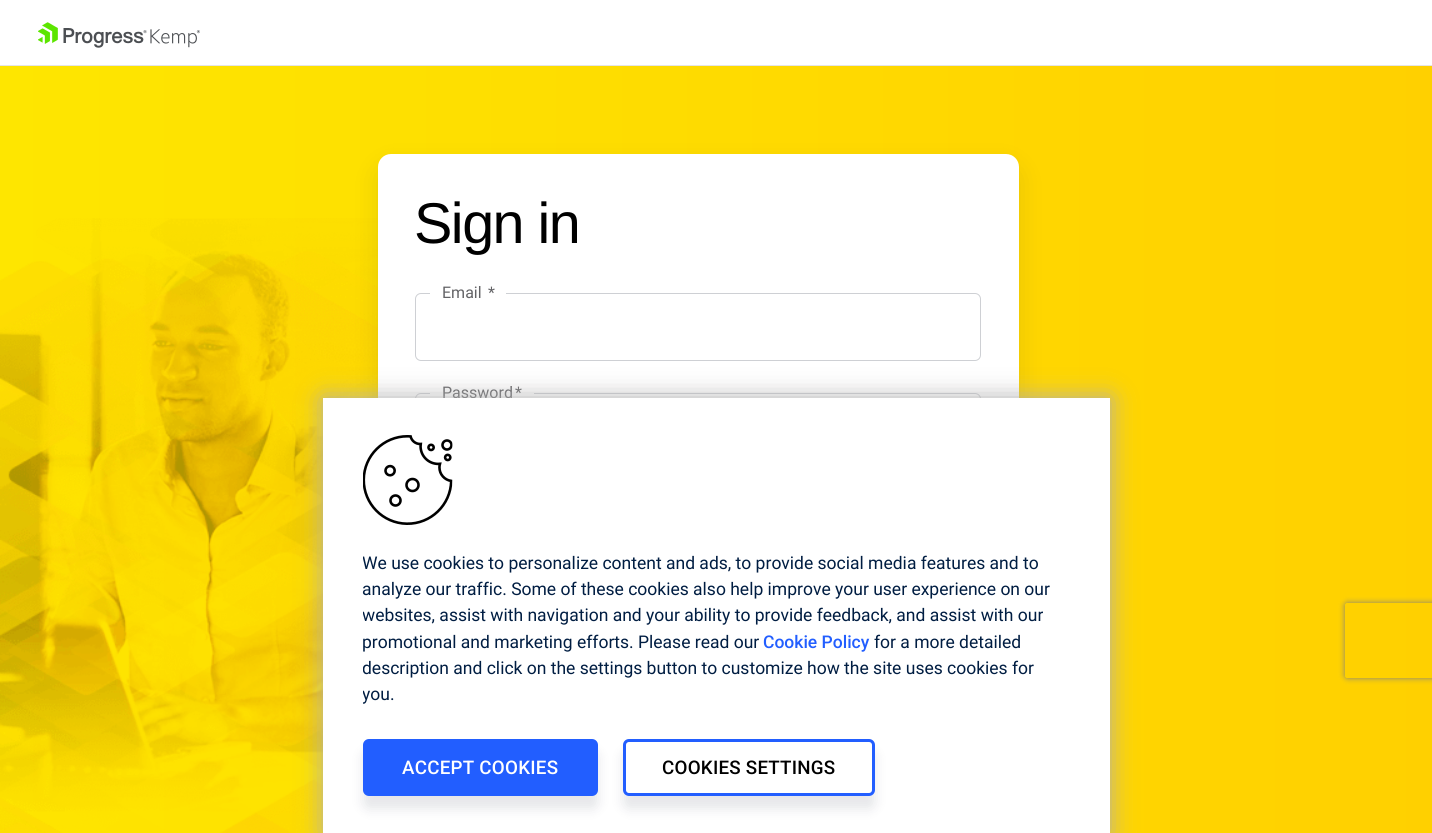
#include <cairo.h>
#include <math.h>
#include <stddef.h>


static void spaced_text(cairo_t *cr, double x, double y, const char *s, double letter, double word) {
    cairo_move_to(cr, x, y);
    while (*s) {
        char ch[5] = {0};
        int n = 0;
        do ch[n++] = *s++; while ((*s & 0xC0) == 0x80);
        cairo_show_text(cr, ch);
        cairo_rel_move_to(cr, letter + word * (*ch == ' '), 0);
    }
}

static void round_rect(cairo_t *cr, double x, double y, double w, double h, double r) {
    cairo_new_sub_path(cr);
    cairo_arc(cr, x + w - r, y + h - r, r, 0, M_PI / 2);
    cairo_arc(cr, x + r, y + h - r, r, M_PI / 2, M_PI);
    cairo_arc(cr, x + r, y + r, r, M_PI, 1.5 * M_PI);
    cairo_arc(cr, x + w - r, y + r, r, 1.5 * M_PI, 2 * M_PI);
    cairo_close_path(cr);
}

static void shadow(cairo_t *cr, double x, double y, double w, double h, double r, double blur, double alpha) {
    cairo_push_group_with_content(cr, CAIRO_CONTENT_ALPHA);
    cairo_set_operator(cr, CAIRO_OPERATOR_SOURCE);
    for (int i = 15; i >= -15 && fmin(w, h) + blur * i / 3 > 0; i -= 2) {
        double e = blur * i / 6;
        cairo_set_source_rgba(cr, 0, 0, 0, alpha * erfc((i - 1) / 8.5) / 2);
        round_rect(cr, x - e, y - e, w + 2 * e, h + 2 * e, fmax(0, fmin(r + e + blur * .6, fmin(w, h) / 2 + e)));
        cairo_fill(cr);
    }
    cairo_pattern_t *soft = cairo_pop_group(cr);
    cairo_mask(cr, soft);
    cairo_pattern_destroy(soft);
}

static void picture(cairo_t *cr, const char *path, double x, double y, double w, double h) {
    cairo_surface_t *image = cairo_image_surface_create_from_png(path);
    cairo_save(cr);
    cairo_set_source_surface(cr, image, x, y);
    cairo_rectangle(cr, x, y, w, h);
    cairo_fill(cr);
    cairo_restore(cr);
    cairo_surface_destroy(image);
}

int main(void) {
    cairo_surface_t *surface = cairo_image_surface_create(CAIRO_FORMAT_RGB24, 1432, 833);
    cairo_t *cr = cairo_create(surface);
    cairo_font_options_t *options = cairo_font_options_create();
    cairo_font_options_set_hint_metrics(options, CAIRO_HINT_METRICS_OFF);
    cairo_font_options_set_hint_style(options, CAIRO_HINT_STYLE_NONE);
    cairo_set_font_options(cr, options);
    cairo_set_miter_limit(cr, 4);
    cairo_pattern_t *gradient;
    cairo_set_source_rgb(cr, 1, 1, 1);
    cairo_paint(cr);
    cairo_set_source_rgb(cr, 0.898, 0.898, 0.898);
    cairo_rectangle(cr, 0, 65, 1432, 1);
    cairo_fill(cr);
    picture(cr, "img1.png", 38, 22, 162, 26);
    gradient = cairo_pattern_create_linear(0, 608, 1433, 608);
    cairo_pattern_add_color_stop_rgba(gradient, 0, 0.996, 0.902, 0, 1);
    cairo_pattern_add_color_stop_rgba(gradient, 1, 1, 0.816, 0, 1);
    cairo_set_source(cr, gradient);
    cairo_pattern_destroy(gradient);
    cairo_rectangle(cr, 0, 66, 1432, 767);
    cairo_fill(cr);
    picture(cr, "img2.png", 0, 218, 378, 615);
    cairo_set_source_rgb(cr, 0.016, 0.078, 0.169);
    shadow(cr, 378, 166, 641, 625, 13, 12.5, 0.1);
    cairo_set_source_rgb(cr, 1, 1, 1);
    round_rect(cr, 378, 154, 641, 625, 13);
    cairo_fill(cr);
    cairo_select_font_face(cr, "Liberation Sans", CAIRO_FONT_SLANT_NORMAL, CAIRO_FONT_WEIGHT_NORMAL);
    cairo_set_font_size(cr, 57.5);
    cairo_set_source_rgb(cr, 0, 0, 0);
    spaced_text(cr, 414, 243, "Sign in", -1.5, 0);
    round_rect(cr, 415.5, 293.5, 565, 67, 5.5);
    cairo_set_source_rgb(cr, 0.808, 0.816, 0.831);
    cairo_set_line_width(cr, 1);
    cairo_stroke(cr);
    cairo_set_source_rgb(cr, 1, 1, 1);
    cairo_rectangle(cr, 430, 293, 76, 1);
    cairo_fill(cr);
    cairo_select_font_face(cr, "Roboto", CAIRO_FONT_SLANT_NORMAL, CAIRO_FONT_WEIGHT_NORMAL);
    cairo_set_font_size(cr, 16);
    cairo_set_source_rgb(cr, 0.388, 0.388, 0.4);
    cairo_move_to(cr, 442, 298);
    cairo_show_text(cr, "Email");
    cairo_move_to(cr, 488, 298);
    cairo_show_text(cr, "*");
    round_rect(cr, 415.5, 393.5, 565, 67, 5.5);
    cairo_set_source_rgb(cr, 0.808, 0.816, 0.831);
    cairo_stroke(cr);
    cairo_set_source_rgb(cr, 1, 1, 1);
    cairo_rectangle(cr, 430, 393, 104, 1);
    cairo_fill(cr);
    cairo_set_source_rgb(cr, 0.388, 0.388, 0.4);
    cairo_move_to(cr, 442, 398);
    cairo_show_text(cr, "Password");
    cairo_move_to(cr, 515, 398);
    cairo_show_text(cr, "*");
    cairo_set_source_rgb(cr, 0.69, 0.686, 0.686);
    shadow(cr, 323, 398, 787, 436, 0, 12.5, 1);
    cairo_set_source_rgb(cr, 1, 1, 1);
    cairo_rectangle(cr, 323, 398, 787, 435);
    cairo_fill(cr);
    picture(cr, "img3.png", 363, 435, 90, 90);
    cairo_save(cr);
    cairo_rectangle(cr, 363, 550, 708, 189);
    cairo_clip(cr);
    cairo_set_font_size(cr, 17.5);
    cairo_set_source_rgb(cr, 0, 0.114, 0.259);
    cairo_move_to(cr, 362, 569);
    cairo_show_text(cr, "We use cookies to personalize content and ads, to provide social media features and to");
    cairo_restore(cr);
    cairo_set_font_size(cr, 17.5);
    cairo_set_source_rgb(cr, 0, 0.114, 0.259);
    cairo_move_to(cr, 362, 595);
    cairo_show_text(cr, "analyze our traffic. Some of these cookies also help improve your user experience on our");
    cairo_save(cr);
    cairo_rectangle(cr, 363, 550, 708, 189);
    cairo_clip(cr);
    cairo_move_to(cr, 362, 621);
    cairo_show_text(cr, "websites, assist with navigation and your ability to provide feedback, and assist with our");
    cairo_restore(cr);
    cairo_move_to(cr, 362, 648);
    cairo_show_text(cr, "promotional and marketing efforts. Please read our");
    cairo_select_font_face(cr, "Roboto Medium", CAIRO_FONT_SLANT_NORMAL, CAIRO_FONT_WEIGHT_NORMAL);
    cairo_set_source_rgb(cr, 0.133, 0.369, 1);
    cairo_move_to(cr, 763, 648);
    cairo_show_text(cr, "Cookie Policy");
    cairo_select_font_face(cr, "Roboto", CAIRO_FONT_SLANT_NORMAL, CAIRO_FONT_WEIGHT_NORMAL);
    cairo_set_source_rgb(cr, 0, 0.114, 0.259);
    cairo_move_to(cr, 874, 648);
    cairo_show_text(cr, "for a more detailed");
    cairo_save(cr);
    cairo_rectangle(cr, 363, 550, 708, 189);
    cairo_clip(cr);
    cairo_move_to(cr, 362, 674);
    cairo_show_text(cr, "description and click on the settings button to customize how the site uses cookies for");
    cairo_move_to(cr, 362, 700);
    cairo_show_text(cr, "you.");
    cairo_restore(cr);
    cairo_set_source_rgb(cr, 0.027, 0.047, 0.153);
    shadow(cr, 363, 751, 235, 58, 6, 6, 0.1);
    cairo_set_source_rgb(cr, 0.133, 0.369, 1);
    round_rect(cr, 363, 739, 235, 57, 6);
    cairo_fill(cr);
    cairo_select_font_face(cr, "Roboto Medium", CAIRO_FONT_SLANT_NORMAL, CAIRO_FONT_WEIGHT_NORMAL);
    cairo_set_font_size(cr, 18.75);
    cairo_set_source_rgb(cr, 1, 1, 1);
    spaced_text(cr, 402, 774, "ACCEPT COOKIES", 0.25, 0);
    cairo_save(cr);
    cairo_set_fill_rule(cr, CAIRO_FILL_RULE_EVEN_ODD);
    cairo_new_path(cr);
    cairo_move_to(cr, 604, 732);
    cairo_line_to(cr, 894, 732);
    cairo_line_to(cr, 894, 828);
    cairo_line_to(cr, 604, 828);
    cairo_close_path(cr);
    cairo_move_to(cr, 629, 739);
    cairo_line_to(cr, 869, 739);
    cairo_curve_to(cr, 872.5, 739, 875, 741.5, 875, 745);
    cairo_line_to(cr, 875, 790);
    cairo_curve_to(cr, 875, 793.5, 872.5, 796, 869, 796);
    cairo_line_to(cr, 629, 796);
    cairo_curve_to(cr, 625.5, 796, 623, 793.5, 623, 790);
    cairo_line_to(cr, 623, 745);
    cairo_curve_to(cr, 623, 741.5, 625.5, 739, 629, 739);
    cairo_close_path(cr);
    cairo_clip(cr);
    cairo_set_source_rgb(cr, 0.027, 0.047, 0.153);
    shadow(cr, 623, 751, 252, 58, 6, 6, 0.1);
    cairo_restore(cr);
    round_rect(cr, 624.5, 740.5, 249, 54, 4.5);
    cairo_set_source_rgb(cr, 0.133, 0.369, 1);
    cairo_set_line_width(cr, 3);
    cairo_stroke(cr);
    cairo_set_source_rgb(cr, 0, 0, 0);
    spaced_text(cr, 662, 774, "COOKIES SETTINGS", 0.25, 0);
    cairo_save(cr);
    cairo_set_fill_rule(cr, CAIRO_FILL_RULE_EVEN_ODD);
    cairo_new_path(cr);
    cairo_move_to(cr, 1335, 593);
    cairo_line_to(cr, 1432, 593);
    cairo_line_to(cr, 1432, 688);
    cairo_line_to(cr, 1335, 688);
    cairo_close_path(cr);
    cairo_move_to(cr, 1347.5, 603);
    cairo_line_to(cr, 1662.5, 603);
    cairo_curve_to(cr, 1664, 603, 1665, 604, 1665, 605.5);
    cairo_line_to(cr, 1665, 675.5);
    cairo_curve_to(cr, 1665, 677, 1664, 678, 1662.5, 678);
    cairo_line_to(cr, 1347.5, 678);
    cairo_curve_to(cr, 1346, 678, 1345, 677, 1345, 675.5);
    cairo_line_to(cr, 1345, 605.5);
    cairo_curve_to(cr, 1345, 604, 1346, 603, 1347.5, 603);
    cairo_close_path(cr);
    cairo_clip(cr);
    cairo_set_source_rgb(cr, 0.502, 0.502, 0.502);
    shadow(cr, 1345, 603, 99, 75, 2.5, 3, 1);
    cairo_restore(cr);
    cairo_surface_write_to_png(surface, "page.png");
    cairo_font_options_destroy(options);
    cairo_destroy(cr);
    cairo_surface_destroy(surface);
    return 0;
}
